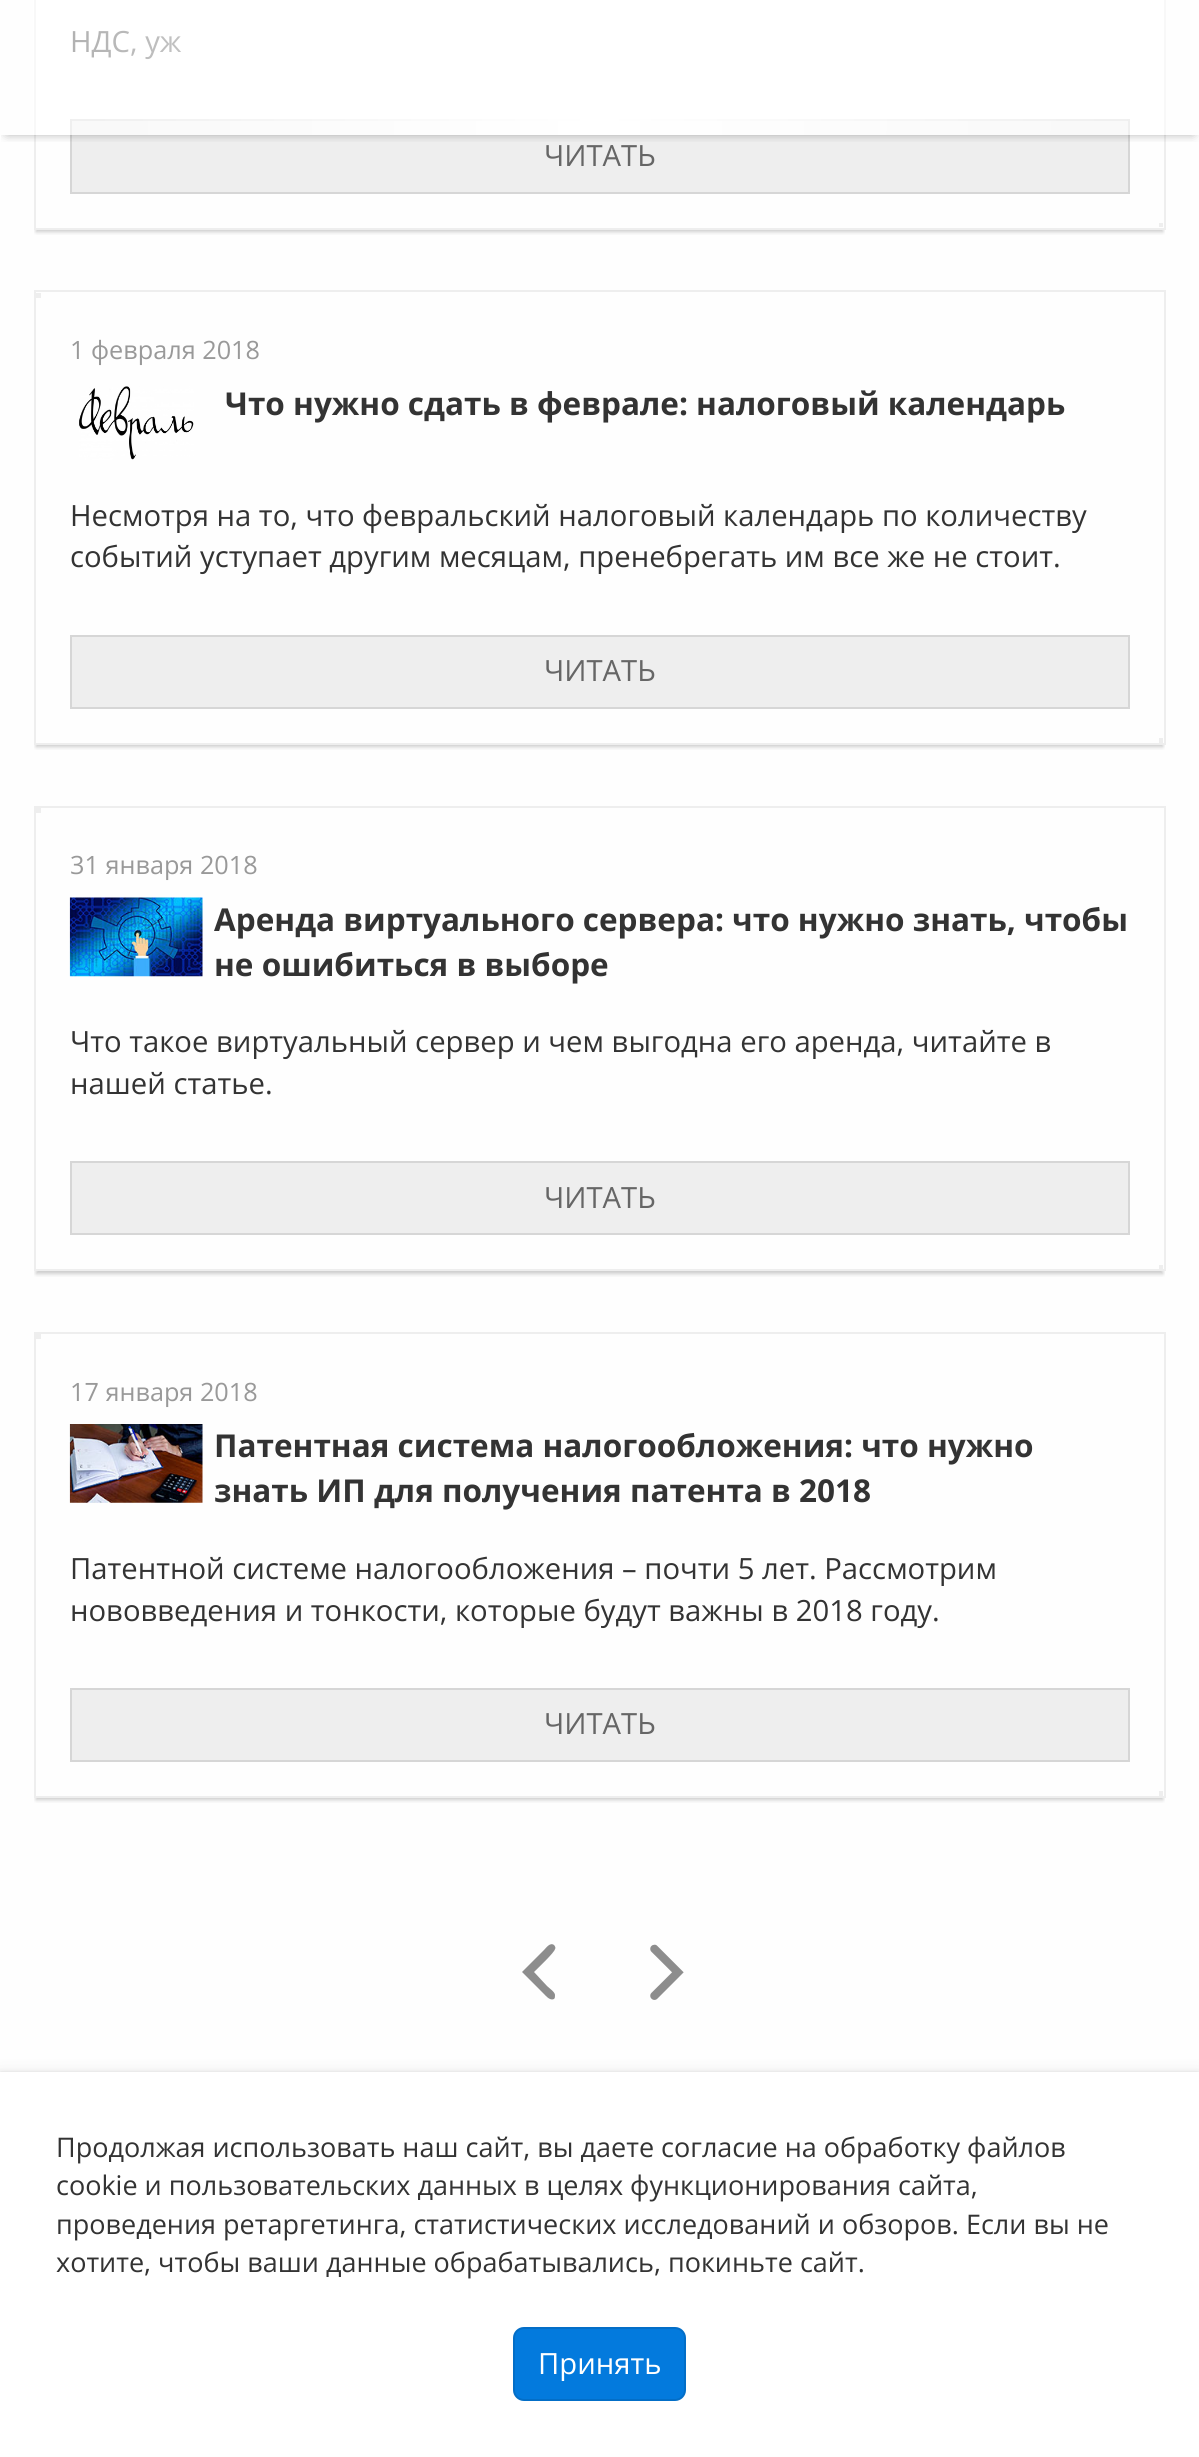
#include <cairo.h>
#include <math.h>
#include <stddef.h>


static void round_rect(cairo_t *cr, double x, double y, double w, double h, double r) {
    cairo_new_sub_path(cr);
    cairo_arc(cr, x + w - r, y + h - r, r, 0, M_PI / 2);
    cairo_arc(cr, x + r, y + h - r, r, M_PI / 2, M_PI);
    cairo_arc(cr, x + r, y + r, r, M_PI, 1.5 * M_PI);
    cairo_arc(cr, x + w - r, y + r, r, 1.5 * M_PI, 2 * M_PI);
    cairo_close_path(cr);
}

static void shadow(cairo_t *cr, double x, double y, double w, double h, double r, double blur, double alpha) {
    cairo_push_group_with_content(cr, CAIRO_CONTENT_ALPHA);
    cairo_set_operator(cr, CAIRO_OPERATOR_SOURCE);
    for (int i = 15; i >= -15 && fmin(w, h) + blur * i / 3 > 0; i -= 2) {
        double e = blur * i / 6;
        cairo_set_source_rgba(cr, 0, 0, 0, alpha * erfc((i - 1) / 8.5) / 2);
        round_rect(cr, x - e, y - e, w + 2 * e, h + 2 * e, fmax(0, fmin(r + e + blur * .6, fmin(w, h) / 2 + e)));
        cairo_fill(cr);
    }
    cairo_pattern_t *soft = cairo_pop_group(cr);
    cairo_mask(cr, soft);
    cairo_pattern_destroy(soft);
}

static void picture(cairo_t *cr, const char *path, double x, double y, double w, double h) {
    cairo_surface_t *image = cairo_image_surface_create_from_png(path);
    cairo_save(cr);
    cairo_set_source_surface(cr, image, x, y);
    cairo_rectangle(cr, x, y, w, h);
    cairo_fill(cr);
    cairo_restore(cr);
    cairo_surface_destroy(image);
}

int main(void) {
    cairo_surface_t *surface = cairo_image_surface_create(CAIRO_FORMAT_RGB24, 1199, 2457);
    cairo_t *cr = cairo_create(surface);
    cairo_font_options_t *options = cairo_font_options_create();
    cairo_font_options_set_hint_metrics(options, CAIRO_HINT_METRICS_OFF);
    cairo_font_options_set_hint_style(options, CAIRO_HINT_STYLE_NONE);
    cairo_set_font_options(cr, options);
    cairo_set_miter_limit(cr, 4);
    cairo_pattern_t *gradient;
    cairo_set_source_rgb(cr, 0.996, 0.996, 0.996);
    cairo_paint(cr);
    cairo_save(cr);
    cairo_rectangle(cr, 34, 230, 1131, 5);
    cairo_clip(cr);
    cairo_set_source_rgb(cr, 0, 0, 0);
    shadow(cr, 36, -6, 1127, 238, 0, 2, 0.2);
    cairo_restore(cr);
    cairo_rectangle(cr, 35, -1, 1130, 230);
    cairo_set_source_rgb(cr, 0.933, 0.933, 0.933);
    cairo_stroke(cr);
    cairo_rectangle(cr, 71, 120, 1058, 73);
    cairo_fill_preserve(cr);
    cairo_set_source_rgb(cr, 0.839, 0.839, 0.839);
    cairo_stroke(cr);
    cairo_save(cr);
    cairo_rectangle(cr, 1, 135, 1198, 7);
    cairo_clip(cr);
    cairo_set_source_rgb(cr, 0, 0, 0);
    shadow(cr, 7, 11, 1186, 122, 0, 5.5, 0.4);
    cairo_restore(cr);
    cairo_select_font_face(cr, "Open Sans", CAIRO_FONT_SLANT_NORMAL, CAIRO_FONT_WEIGHT_NORMAL);
    cairo_set_font_size(cr, 29.25);
    cairo_set_source_rgb(cr, 0.2, 0.2, 0.2);
    cairo_move_to(cr, 70, 52);
    cairo_show_text(cr, "НДС, уж");
    gradient = cairo_pattern_create_linear(1199, 68, 0, 67);
    cairo_pattern_add_color_stop_rgba(gradient, 0, 1, 1, 1, 0.57);
    cairo_pattern_add_color_stop_rgba(gradient, 0.5, 1, 1, 1, 1);
    cairo_pattern_add_color_stop_rgba(gradient, 1, 1, 1, 1, 0.57);
    cairo_set_source(cr, gradient);
    cairo_pattern_destroy(gradient);
    cairo_rectangle(cr, 33, 0, 1133, 135);
    cairo_fill(cr);
    cairo_set_source_rgb(cr, 0.4, 0.4, 0.4);
    cairo_move_to(cr, 544, 166);
    cairo_show_text(cr, "ЧИТАТЬ");
    cairo_set_source_rgb(cr, 0.933, 0.933, 0.933);
    cairo_rectangle(cr, 1159, 223, 4, 4);
    cairo_fill(cr);
    cairo_save(cr);
    cairo_rectangle(cr, 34, 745, 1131, 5);
    cairo_clip(cr);
    cairo_set_source_rgb(cr, 0, 0, 0);
    shadow(cr, 36, 297, 1127, 450, 0, 2, 0.2);
    cairo_restore(cr);
    cairo_rectangle(cr, 35, 291, 1130, 453);
    cairo_stroke(cr);
    cairo_rectangle(cr, 36, 293, 5, 5);
    cairo_fill(cr);
    cairo_set_font_size(cr, 25.25);
    cairo_set_source_rgb(cr, 0.6, 0.6, 0.6);
    cairo_move_to(cr, 70, 359);
    cairo_show_text(cr, "1 февраля 2018");
    picture(cr, "img1.png", 79, 386, 115, 74);
    cairo_select_font_face(cr, "Open Sans", CAIRO_FONT_SLANT_NORMAL, CAIRO_FONT_WEIGHT_BOLD);
    cairo_set_font_size(cr, 31.5);
    cairo_set_source_rgb(cr, 0.2, 0.2, 0.2);
    cairo_move_to(cr, 225, 415);
    cairo_show_text(cr, "Что нужно сдать в феврале: налоговый календарь");
    cairo_select_font_face(cr, "Open Sans", CAIRO_FONT_SLANT_NORMAL, CAIRO_FONT_WEIGHT_NORMAL);
    cairo_set_font_size(cr, 29.25);
    cairo_move_to(cr, 70, 526);
    cairo_show_text(cr, "Несмотря на то, что февральский налоговый календарь по количеству");
    cairo_move_to(cr, 70, 567);
    cairo_show_text(cr, "событий уступает другим месяцам, пренебрегать им все же не стоит.");
    cairo_set_source_rgb(cr, 0.933, 0.933, 0.933);
    cairo_rectangle(cr, 71, 636, 1058, 72);
    cairo_fill_preserve(cr);
    cairo_set_source_rgb(cr, 0.839, 0.839, 0.839);
    cairo_stroke(cr);
    cairo_set_source_rgb(cr, 0.4, 0.4, 0.4);
    cairo_move_to(cr, 544, 681);
    cairo_show_text(cr, "ЧИТАТЬ");
    cairo_set_source_rgb(cr, 0.933, 0.933, 0.933);
    cairo_rectangle(cr, 1159, 738, 4, 5);
    cairo_fill(cr);
    cairo_save(cr);
    cairo_rectangle(cr, 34, 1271, 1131, 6);
    cairo_clip(cr);
    cairo_set_source_rgb(cr, 0, 0, 0);
    shadow(cr, 36, 812, 1127, 462, 0, 2, 0.2);
    cairo_restore(cr);
    cairo_rectangle(cr, 35, 807, 1130, 463);
    cairo_stroke(cr);
    cairo_rectangle(cr, 36, 808, 5, 5);
    cairo_fill(cr);
    cairo_set_font_size(cr, 25.25);
    cairo_set_source_rgb(cr, 0.6, 0.6, 0.6);
    cairo_move_to(cr, 70, 874);
    cairo_show_text(cr, "31 января 2018");
    picture(cr, "img2.png", 69, 897, 134, 80);
    cairo_select_font_face(cr, "Open Sans", CAIRO_FONT_SLANT_NORMAL, CAIRO_FONT_WEIGHT_BOLD);
    cairo_set_font_size(cr, 31.5);
    cairo_set_source_rgb(cr, 0.2, 0.2, 0.2);
    cairo_move_to(cr, 214, 931);
    cairo_show_text(cr, "Аренда виртуального сервера: что нужно знать, чтобы");
    cairo_move_to(cr, 214, 976);
    cairo_show_text(cr, "не ошибиться в выборе");
    cairo_select_font_face(cr, "Open Sans", CAIRO_FONT_SLANT_NORMAL, CAIRO_FONT_WEIGHT_NORMAL);
    cairo_set_font_size(cr, 29.25);
    cairo_move_to(cr, 70, 1052);
    cairo_show_text(cr, "Что такое виртуальный сервер и чем выгодна его аренда, читайте в");
    cairo_move_to(cr, 70, 1094);
    cairo_show_text(cr, "нашей статье.");
    cairo_set_source_rgb(cr, 0.933, 0.933, 0.933);
    cairo_rectangle(cr, 71, 1162, 1058, 72);
    cairo_fill_preserve(cr);
    cairo_set_source_rgb(cr, 0.839, 0.839, 0.839);
    cairo_stroke(cr);
    cairo_set_source_rgb(cr, 0.4, 0.4, 0.4);
    cairo_move_to(cr, 544, 1208);
    cairo_show_text(cr, "ЧИТАТЬ");
    cairo_set_source_rgb(cr, 0.933, 0.933, 0.933);
    cairo_rectangle(cr, 1159, 1265, 4, 4);
    cairo_fill(cr);
    cairo_save(cr);
    cairo_rectangle(cr, 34, 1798, 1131, 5);
    cairo_clip(cr);
    cairo_set_source_rgb(cr, 0, 0, 0);
    shadow(cr, 36, 1339, 1127, 461, 0, 2, 0.2);
    cairo_restore(cr);
    cairo_rectangle(cr, 35, 1333, 1130, 464);
    cairo_stroke(cr);
    cairo_rectangle(cr, 36, 1334, 5, 5);
    cairo_fill(cr);
    cairo_set_font_size(cr, 25.25);
    cairo_set_source_rgb(cr, 0.6, 0.6, 0.6);
    cairo_move_to(cr, 70, 1401);
    cairo_show_text(cr, "17 января 2018");
    picture(cr, "img3.png", 69, 1424, 134, 79);
    cairo_select_font_face(cr, "Open Sans", CAIRO_FONT_SLANT_NORMAL, CAIRO_FONT_WEIGHT_BOLD);
    cairo_set_font_size(cr, 31.5);
    cairo_set_source_rgb(cr, 0.2, 0.2, 0.2);
    cairo_move_to(cr, 214, 1457);
    cairo_show_text(cr, "Патентная система налогообложения: что нужно");
    cairo_move_to(cr, 214, 1502);
    cairo_show_text(cr, "знать ИП для получения патента в 2018");
    cairo_select_font_face(cr, "Open Sans", CAIRO_FONT_SLANT_NORMAL, CAIRO_FONT_WEIGHT_NORMAL);
    cairo_set_font_size(cr, 29.25);
    cairo_move_to(cr, 70, 1579);
    cairo_show_text(cr, "Патентной системе налогообложения – почти 5 лет. Рассмотрим");
    cairo_move_to(cr, 70, 1621);
    cairo_show_text(cr, "нововведения и тонкости, которые будут важны в 2018 году.");
    cairo_set_source_rgb(cr, 0.933, 0.933, 0.933);
    cairo_rectangle(cr, 71, 1689, 1058, 72);
    cairo_fill_preserve(cr);
    cairo_set_source_rgb(cr, 0.839, 0.839, 0.839);
    cairo_stroke(cr);
    cairo_set_source_rgb(cr, 0.4, 0.4, 0.4);
    cairo_move_to(cr, 544, 1734);
    cairo_show_text(cr, "ЧИТАТЬ");
    cairo_set_source_rgb(cr, 0.933, 0.933, 0.933);
    cairo_rectangle(cr, 1159, 1791, 4, 5);
    cairo_fill(cr);
    cairo_set_source_rgb(cr, 0.553, 0.553, 0.553);
    cairo_new_path(cr);
    cairo_move_to(cr, 522, 1972);
    cairo_line_to(cr, 544, 1950);
    cairo_curve_to(cr, 546, 1948, 550, 1942, 554, 1945);
    cairo_curve_to(cr, 555, 1946, 556, 1948, 555, 1949);
    cairo_curve_to(cr, 555, 1952, 537, 1969, 534, 1972);
    cairo_line_to(cr, 547, 1986);
    cairo_curve_to(cr, 549, 1988, 555, 1992, 555, 1995);
    cairo_curve_to(cr, 555, 1997, 555, 1998, 554, 1999);
    cairo_curve_to(cr, 550, 2001, 546, 1996, 544, 1994);
    cairo_close_path(cr);
    cairo_fill(cr);
    picture(cr, "img4.png", 650, 1944, 34, 56);
    cairo_set_source_rgb(cr, 0, 0, 0);
    shadow(cr, 0, 2072, 1199, 385, 0, 2, 0.08);
    shadow(cr, 0, 2075, 1199, 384, 0, 9, 0.12);
    cairo_set_source_rgb(cr, 1, 1, 1);
    cairo_rectangle(cr, 0, 2072, 1199, 385);
    cairo_fill(cr);
    cairo_set_font_size(cr, 27);
    cairo_set_source_rgb(cr, 0.2, 0.2, 0.2);
    cairo_move_to(cr, 56, 2157);
    cairo_show_text(cr, "Продолжая использовать наш сайт, вы даете согласие на обработку файлов");
    cairo_move_to(cr, 56, 2195);
    cairo_show_text(cr, "cookie и пользовательских данных в целях функционирования сайта,");
    cairo_move_to(cr, 56, 2234);
    cairo_show_text(cr, "проведения ретаргетинга, статистических исследований и обзоров. Если вы не");
    cairo_move_to(cr, 56, 2272);
    cairo_show_text(cr, "хотите, чтобы ваши данные обрабатывались, покиньте сайт.");
    cairo_set_source_rgb(cr, 0.012, 0.478, 0.867);
    round_rect(cr, 513, 2327, 173, 74, 11);
    cairo_fill(cr);
    round_rect(cr, 514, 2328, 171, 72, 10);
    cairo_set_source_rgba(cr, 0, 0, 0, 0.1);
    cairo_stroke(cr);
    cairo_set_font_size(cr, 29.25);
    cairo_set_source_rgb(cr, 1, 1, 1);
    cairo_move_to(cr, 538, 2374);
    cairo_show_text(cr, "Принять");
    cairo_surface_write_to_png(surface, "page.png");
    cairo_font_options_destroy(options);
    cairo_destroy(cr);
    cairo_surface_destroy(surface);
    return 0;
}
